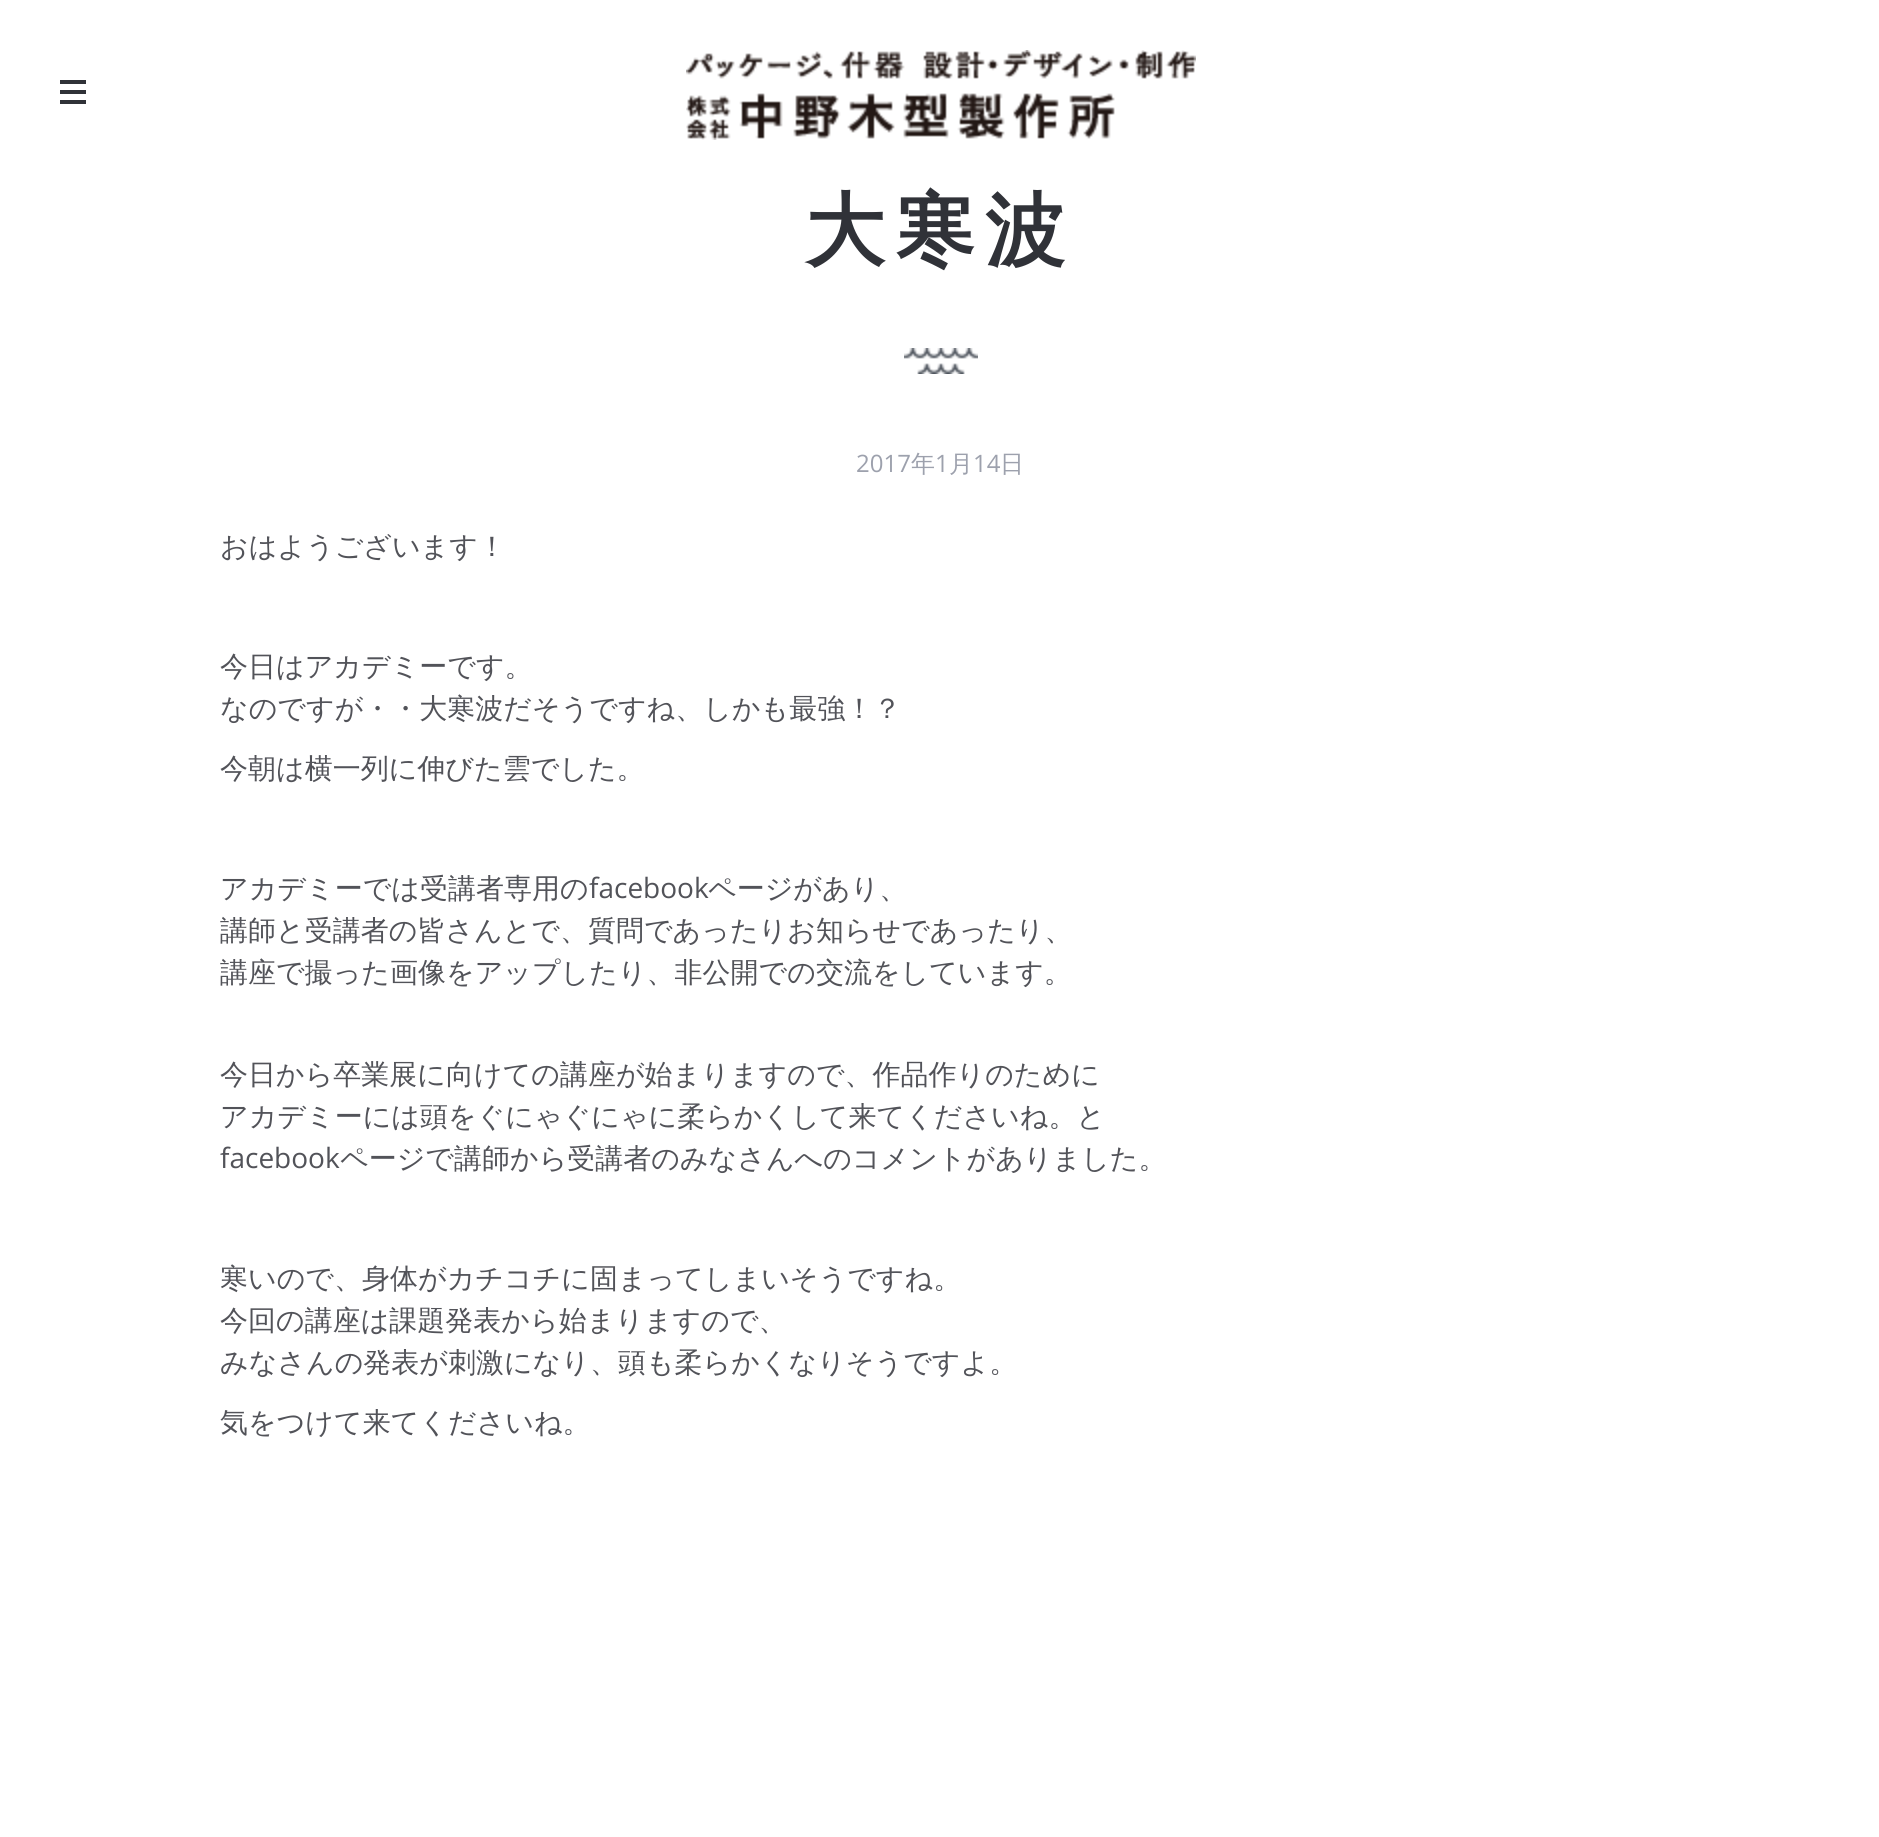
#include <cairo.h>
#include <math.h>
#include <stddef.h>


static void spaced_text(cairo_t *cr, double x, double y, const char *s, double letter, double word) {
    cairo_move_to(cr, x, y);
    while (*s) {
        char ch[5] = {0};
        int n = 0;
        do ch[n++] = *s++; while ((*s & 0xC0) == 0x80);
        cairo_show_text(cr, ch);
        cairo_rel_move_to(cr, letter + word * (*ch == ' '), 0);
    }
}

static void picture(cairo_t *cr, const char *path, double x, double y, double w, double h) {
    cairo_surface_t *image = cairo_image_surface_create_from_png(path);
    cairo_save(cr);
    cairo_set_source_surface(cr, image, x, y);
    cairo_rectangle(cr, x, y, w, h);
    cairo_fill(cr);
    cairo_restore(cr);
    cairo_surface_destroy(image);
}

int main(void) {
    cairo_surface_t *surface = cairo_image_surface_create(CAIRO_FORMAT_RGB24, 1879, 1837);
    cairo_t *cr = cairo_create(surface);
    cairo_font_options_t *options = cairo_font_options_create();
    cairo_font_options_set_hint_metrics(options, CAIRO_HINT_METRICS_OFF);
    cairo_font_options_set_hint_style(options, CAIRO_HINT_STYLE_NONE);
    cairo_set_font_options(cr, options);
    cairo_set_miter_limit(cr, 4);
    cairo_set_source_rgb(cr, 1, 1, 1);
    cairo_paint(cr);
    cairo_set_source_rgb(cr, 0.188, 0.196, 0.22);
    cairo_rectangle(cr, 60, 80, 26, 4);
    cairo_fill(cr);
    cairo_rectangle(cr, 60, 90, 26, 4);
    cairo_fill(cr);
    cairo_rectangle(cr, 60, 100, 26, 4);
    cairo_fill(cr);
    picture(cr, "img1.png", 686, 50, 510, 90);
    cairo_select_font_face(cr, "WenQuanYi Zen Hei", CAIRO_FONT_SLANT_NORMAL, CAIRO_FONT_WEIGHT_BOLD);
    cairo_set_font_size(cr, 80);
    spaced_text(cr, 805, 258, "大寒波", 10, 0);
    picture(cr, "img2.png", 904, 348, 74, 26);
    cairo_select_font_face(cr, "Open Sans", CAIRO_FONT_SLANT_NORMAL, CAIRO_FONT_WEIGHT_NORMAL);
    cairo_set_font_size(cr, 24);
    cairo_set_source_rgb(cr, 0.616, 0.631, 0.678);
    cairo_move_to(cr, 856, 472);
    cairo_show_text(cr, "2017");
    cairo_select_font_face(cr, "WenQuanYi Zen Hei Medium", CAIRO_FONT_SLANT_NORMAL, CAIRO_FONT_WEIGHT_NORMAL);
    cairo_move_to(cr, 911, 472);
    cairo_show_text(cr, "年");
    cairo_select_font_face(cr, "Open Sans", CAIRO_FONT_SLANT_NORMAL, CAIRO_FONT_WEIGHT_NORMAL);
    cairo_move_to(cr, 935, 472);
    cairo_show_text(cr, "1");
    cairo_select_font_face(cr, "WenQuanYi Zen Hei Medium", CAIRO_FONT_SLANT_NORMAL, CAIRO_FONT_WEIGHT_NORMAL);
    cairo_move_to(cr, 949, 472);
    cairo_show_text(cr, "月");
    cairo_select_font_face(cr, "Open Sans", CAIRO_FONT_SLANT_NORMAL, CAIRO_FONT_WEIGHT_NORMAL);
    cairo_move_to(cr, 973, 472);
    cairo_show_text(cr, "14");
    cairo_select_font_face(cr, "WenQuanYi Zen Hei Medium", CAIRO_FONT_SLANT_NORMAL, CAIRO_FONT_WEIGHT_NORMAL);
    cairo_move_to(cr, 1000, 472);
    cairo_show_text(cr, "日");
    cairo_set_font_size(cr, 28);
    cairo_set_source_rgb(cr, 0.322, 0.325, 0.349);
    cairo_move_to(cr, 220, 556);
    cairo_show_text(cr, "おはようございます！");
    cairo_move_to(cr, 220, 676);
    cairo_show_text(cr, "今日はアカデミーです。");
    cairo_move_to(cr, 220, 718);
    cairo_show_text(cr, "なのですが・・大寒波だそうですね、しかも最強！？");
    cairo_move_to(cr, 220, 778);
    cairo_show_text(cr, "今朝は横一列に伸びた雲でした。");
    cairo_move_to(cr, 220, 898);
    cairo_show_text(cr, "アカデミーでは受講者専用の");
    cairo_select_font_face(cr, "Open Sans", CAIRO_FONT_SLANT_NORMAL, CAIRO_FONT_WEIGHT_NORMAL);
    cairo_move_to(cr, 589, 898);
    cairo_show_text(cr, "facebook");
    cairo_select_font_face(cr, "WenQuanYi Zen Hei Medium", CAIRO_FONT_SLANT_NORMAL, CAIRO_FONT_WEIGHT_NORMAL);
    cairo_move_to(cr, 708, 898);
    cairo_show_text(cr, "ページがあり、");
    cairo_move_to(cr, 220, 940);
    cairo_show_text(cr, "講師と受講者の皆さんとで、質問であったりお知らせであったり、");
    cairo_move_to(cr, 220, 982);
    cairo_show_text(cr, "講座で撮った画像をアップしたり、非公開での交流をしています。");
    cairo_move_to(cr, 220, 1084);
    cairo_show_text(cr, "今日から卒業展に向けての講座が始まりますので、作品作りのために");
    cairo_move_to(cr, 220, 1126);
    cairo_show_text(cr, "アカデミーには頭をぐにゃぐにゃに柔らかくして来てくださいね。と");
    cairo_select_font_face(cr, "Open Sans", CAIRO_FONT_SLANT_NORMAL, CAIRO_FONT_WEIGHT_NORMAL);
    cairo_move_to(cr, 220, 1168);
    cairo_show_text(cr, "facebook");
    cairo_select_font_face(cr, "WenQuanYi Zen Hei Medium", CAIRO_FONT_SLANT_NORMAL, CAIRO_FONT_WEIGHT_NORMAL);
    cairo_move_to(cr, 340, 1168);
    cairo_show_text(cr, "ページで講師から受講者のみなさんへのコメントがありました。");
    cairo_move_to(cr, 220, 1288);
    cairo_show_text(cr, "寒いので、身体がカチコチに固まってしまいそうですね。");
    cairo_move_to(cr, 220, 1330);
    cairo_show_text(cr, "今回の講座は課題発表から始まりますので、");
    cairo_move_to(cr, 220, 1372);
    cairo_show_text(cr, "みなさんの発表が刺激になり、頭も柔らかくなりそうですよ。");
    cairo_move_to(cr, 220, 1432);
    cairo_show_text(cr, "気をつけて来てくださいね。");
    cairo_surface_write_to_png(surface, "page.png");
    cairo_font_options_destroy(options);
    cairo_destroy(cr);
    cairo_surface_destroy(surface);
    return 0;
}
